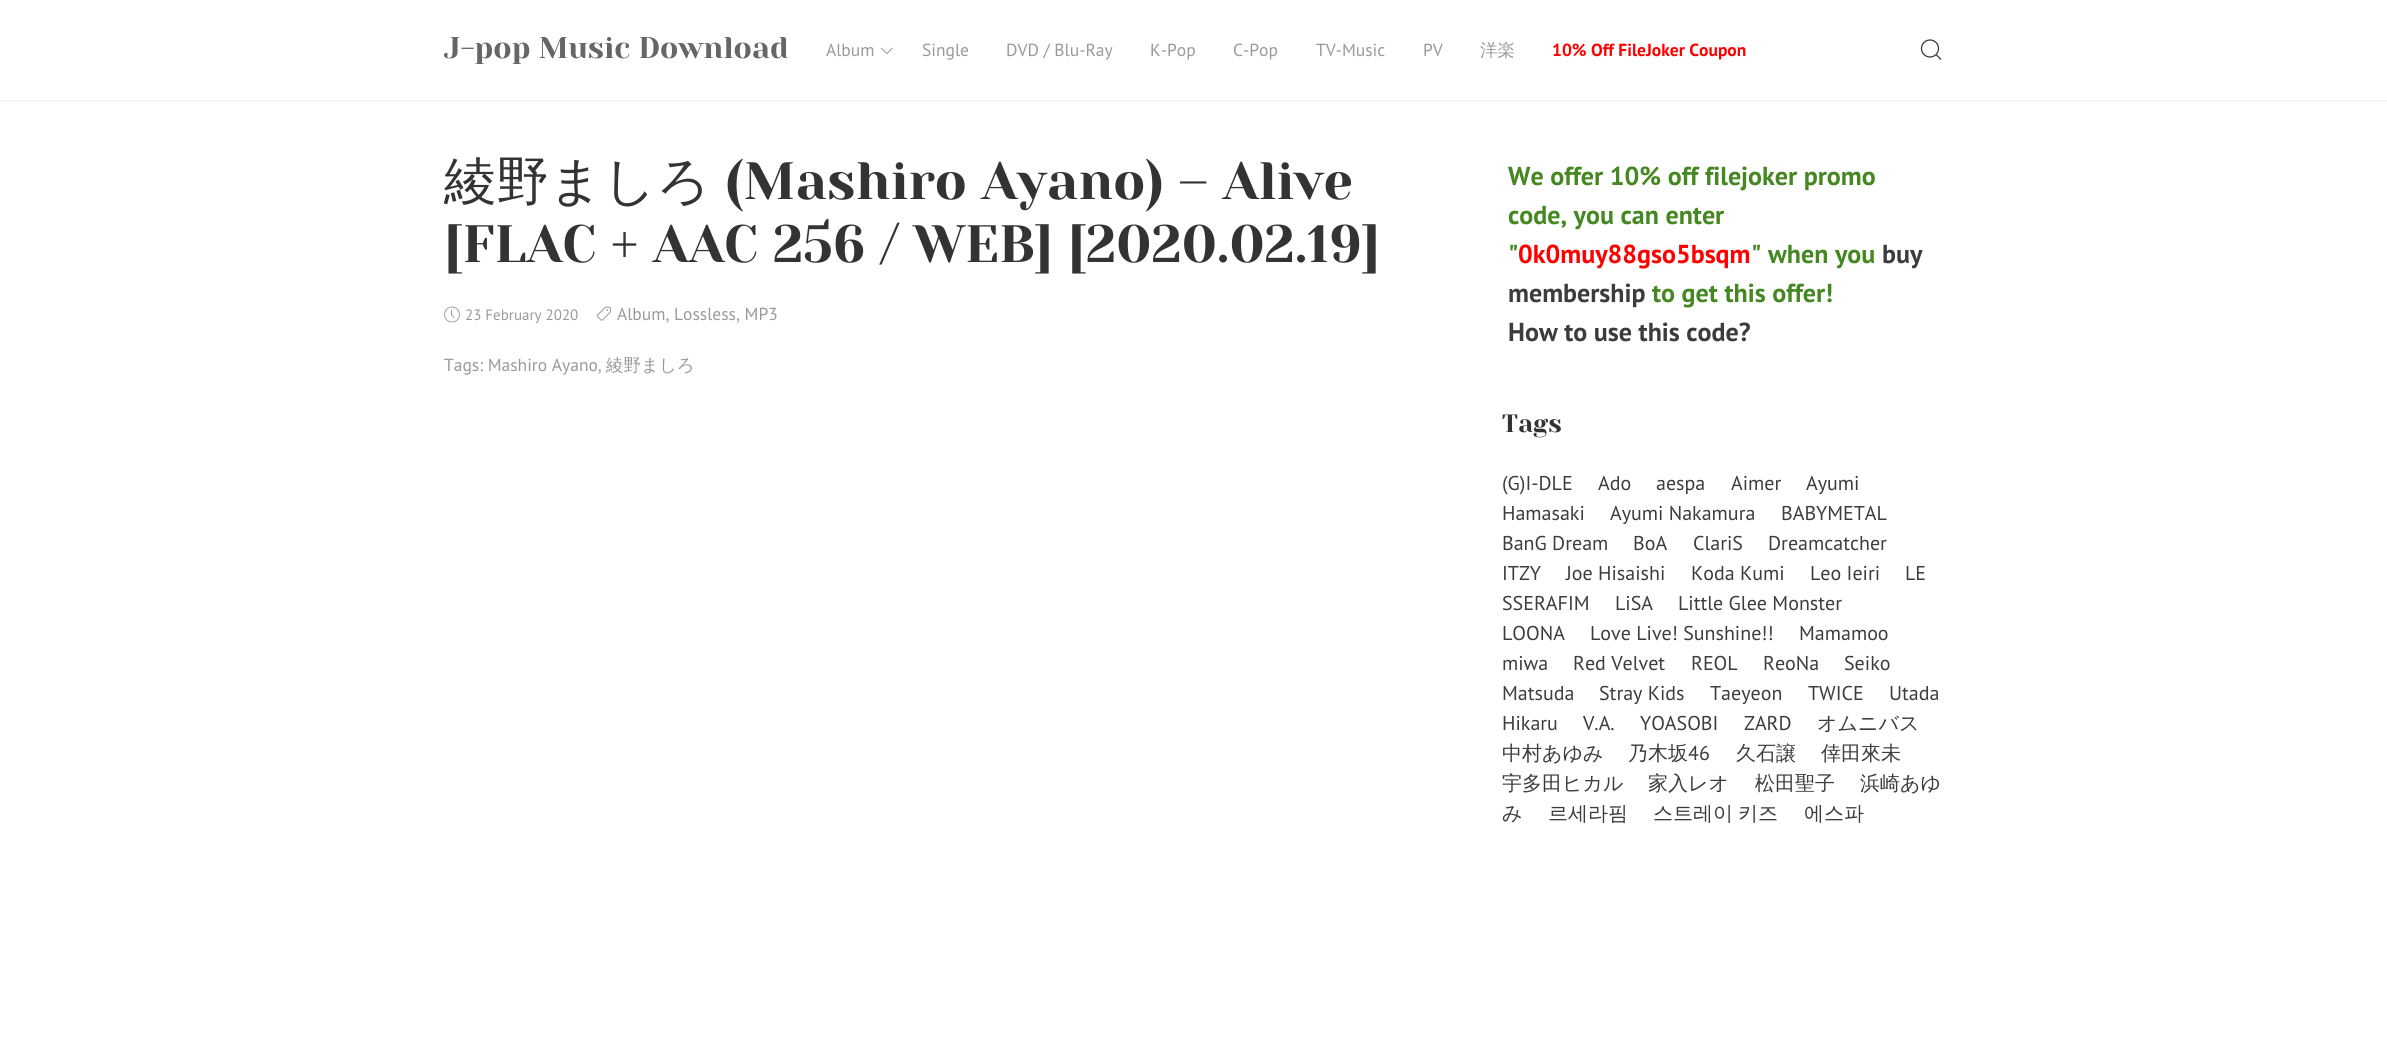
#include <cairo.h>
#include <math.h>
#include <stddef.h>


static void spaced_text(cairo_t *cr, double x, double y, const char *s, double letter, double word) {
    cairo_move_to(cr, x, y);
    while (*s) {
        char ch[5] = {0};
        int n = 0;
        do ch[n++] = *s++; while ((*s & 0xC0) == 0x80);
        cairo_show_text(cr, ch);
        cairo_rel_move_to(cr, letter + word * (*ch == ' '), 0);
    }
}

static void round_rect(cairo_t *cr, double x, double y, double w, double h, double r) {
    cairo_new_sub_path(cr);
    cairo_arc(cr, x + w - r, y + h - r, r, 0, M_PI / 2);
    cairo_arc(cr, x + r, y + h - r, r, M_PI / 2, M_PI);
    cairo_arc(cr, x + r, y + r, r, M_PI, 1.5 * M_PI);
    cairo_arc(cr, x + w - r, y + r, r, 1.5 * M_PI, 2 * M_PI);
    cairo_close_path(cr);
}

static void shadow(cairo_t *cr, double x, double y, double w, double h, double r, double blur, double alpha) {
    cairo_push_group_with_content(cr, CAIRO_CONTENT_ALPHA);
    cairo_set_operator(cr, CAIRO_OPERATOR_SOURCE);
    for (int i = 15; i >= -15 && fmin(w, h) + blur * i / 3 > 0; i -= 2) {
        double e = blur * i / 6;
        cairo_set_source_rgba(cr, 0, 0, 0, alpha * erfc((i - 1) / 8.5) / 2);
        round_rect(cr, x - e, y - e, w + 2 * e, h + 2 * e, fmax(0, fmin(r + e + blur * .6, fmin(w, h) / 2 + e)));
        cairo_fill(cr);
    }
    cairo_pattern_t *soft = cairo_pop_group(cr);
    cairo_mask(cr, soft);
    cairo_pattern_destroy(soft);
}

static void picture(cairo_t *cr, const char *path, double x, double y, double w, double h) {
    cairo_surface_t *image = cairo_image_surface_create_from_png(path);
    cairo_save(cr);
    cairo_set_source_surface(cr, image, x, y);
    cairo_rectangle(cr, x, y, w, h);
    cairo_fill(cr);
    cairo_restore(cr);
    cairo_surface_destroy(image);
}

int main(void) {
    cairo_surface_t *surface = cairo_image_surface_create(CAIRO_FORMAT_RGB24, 2387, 1064);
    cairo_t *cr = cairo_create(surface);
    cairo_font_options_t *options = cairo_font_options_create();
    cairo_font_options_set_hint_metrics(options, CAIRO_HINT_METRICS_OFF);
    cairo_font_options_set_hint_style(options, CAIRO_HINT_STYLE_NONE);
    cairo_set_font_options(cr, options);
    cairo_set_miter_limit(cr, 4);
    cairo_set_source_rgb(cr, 1, 1, 1);
    cairo_paint(cr);
    cairo_save(cr);
    cairo_rectangle(cr, 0, 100, 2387, 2);
    cairo_clip(cr);
    cairo_set_source_rgb(cr, 0, 0, 0);
    shadow(cr, 0, 1, 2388, 100, 0, 2, 0.08);
    cairo_restore(cr);
    cairo_select_font_face(cr, "Yeseva One", CAIRO_FONT_SLANT_NORMAL, CAIRO_FONT_WEIGHT_NORMAL);
    cairo_set_font_size(cr, 30);
    cairo_set_source_rgb(cr, 0.4, 0.4, 0.4);
    cairo_move_to(cr, 444, 58);
    cairo_show_text(cr, "J-pop Music Download");
    cairo_select_font_face(cr, "PT Sans", CAIRO_FONT_SLANT_NORMAL, CAIRO_FONT_WEIGHT_NORMAL);
    cairo_set_font_size(cr, 17.5);
    cairo_set_source_rgb(cr, 0.6, 0.6, 0.6);
    cairo_move_to(cr, 826, 56);
    cairo_show_text(cr, "Album");
    cairo_new_path(cr);
    cairo_move_to(cr, 892.5, 48);
    cairo_line_to(cr, 887, 53.5);
    cairo_line_to(cr, 881, 48);
    cairo_set_line_width(cr, 1);
    cairo_stroke(cr);
    cairo_move_to(cr, 922, 56);
    cairo_show_text(cr, "Single");
    cairo_move_to(cr, 1006, 56);
    cairo_show_text(cr, "DVD / Blu-Ray");
    cairo_move_to(cr, 1150, 56);
    cairo_show_text(cr, "K-Pop");
    cairo_move_to(cr, 1233, 56);
    cairo_show_text(cr, "C-Pop");
    cairo_move_to(cr, 1316, 56);
    cairo_show_text(cr, "TV-Music");
    cairo_move_to(cr, 1423, 56);
    cairo_show_text(cr, "PV");
    cairo_select_font_face(cr, "WenQuanYi Zen Hei Medium", CAIRO_FONT_SLANT_NORMAL, CAIRO_FONT_WEIGHT_NORMAL);
    cairo_move_to(cr, 1480, 56);
    cairo_show_text(cr, "洋楽");
    cairo_select_font_face(cr, "PT Sans", CAIRO_FONT_SLANT_NORMAL, CAIRO_FONT_WEIGHT_BOLD);
    cairo_set_source_rgb(cr, 1, 0, 0);
    cairo_move_to(cr, 1552, 56);
    cairo_show_text(cr, "10% Off FileJoker Coupon");
    cairo_new_path(cr);
    cairo_arc(cr, 1930, 48.5, 8.5, 0, 2 * M_PI);
    cairo_set_source_rgb(cr, 0.235, 0.235, 0.235);
    cairo_set_line_width(cr, 1.3);
    cairo_stroke(cr);
    cairo_new_path(cr);
    cairo_move_to(cr, 1936, 54.5);
    cairo_line_to(cr, 1941, 59.5);
    cairo_close_path(cr);
    cairo_stroke(cr);
    cairo_select_font_face(cr, "WenQuanYi Zen Hei Medium", CAIRO_FONT_SLANT_NORMAL, CAIRO_FONT_WEIGHT_NORMAL);
    cairo_set_font_size(cr, 52.5);
    cairo_set_source_rgb(cr, 0.2, 0.2, 0.2);
    cairo_move_to(cr, 444, 199);
    cairo_show_text(cr, "綾野ましろ");
    cairo_select_font_face(cr, "Yeseva One", CAIRO_FONT_SLANT_NORMAL, CAIRO_FONT_WEIGHT_NORMAL);
    cairo_move_to(cr, 725, 199);
    cairo_show_text(cr, "(Mashiro Ayano) – Alive");
    cairo_move_to(cr, 444, 262);
    cairo_show_text(cr, "[FLAC + AAC 256 / WEB] [2020.02.19]");
    picture(cr, "img1.png", 444, 306, 16, 17);
    cairo_select_font_face(cr, "PT Sans", CAIRO_FONT_SLANT_NORMAL, CAIRO_FONT_WEIGHT_NORMAL);
    cairo_set_font_size(cr, 15);
    cairo_set_source_rgb(cr, 0.6, 0.6, 0.6);
    cairo_move_to(cr, 465, 320);
    cairo_show_text(cr, "23 February 2020");
    picture(cr, "img2.png", 596, 306, 15, 15);
    cairo_set_font_size(cr, 17.5);
    cairo_move_to(cr, 617, 320);
    cairo_show_text(cr, "Album, Lossless, MP3");
    cairo_move_to(cr, 444, 371);
    cairo_show_text(cr, "Tags: Mashiro Ayano,");
    cairo_select_font_face(cr, "WenQuanYi Zen Hei Medium", CAIRO_FONT_SLANT_NORMAL, CAIRO_FONT_WEIGHT_NORMAL);
    cairo_move_to(cr, 606, 371);
    cairo_show_text(cr, "綾野ましろ");
    cairo_select_font_face(cr, "PT Sans", CAIRO_FONT_SLANT_NORMAL, CAIRO_FONT_WEIGHT_BOLD);
    cairo_set_font_size(cr, 26);
    cairo_set_source_rgb(cr, 0.271, 0.529, 0.129);
    cairo_move_to(cr, 1508, 185);
    cairo_show_text(cr, "We offer 10% off filejoker promo");
    cairo_move_to(cr, 1508, 224);
    cairo_show_text(cr, "code, you can enter");
    cairo_move_to(cr, 1508, 263);
    cairo_show_text(cr, "\"");
    cairo_set_source_rgb(cr, 1, 0, 0);
    cairo_move_to(cr, 1518, 263);
    cairo_show_text(cr, "0k0muy88gso5bsqm");
    cairo_set_source_rgb(cr, 0.271, 0.529, 0.129);
    cairo_move_to(cr, 1751, 263);
    cairo_show_text(cr, "\" when you");
    cairo_set_source_rgb(cr, 0.235, 0.235, 0.235);
    cairo_move_to(cr, 1882, 263);
    cairo_show_text(cr, "buy");
    cairo_move_to(cr, 1508, 302);
    cairo_show_text(cr, "membership");
    cairo_set_source_rgb(cr, 0.271, 0.529, 0.129);
    cairo_move_to(cr, 1652, 302);
    cairo_show_text(cr, "to get this offer!");
    cairo_set_source_rgb(cr, 0.235, 0.235, 0.235);
    cairo_move_to(cr, 1508, 341);
    cairo_show_text(cr, "How to use this code?");
    cairo_select_font_face(cr, "Yeseva One", CAIRO_FONT_SLANT_NORMAL, CAIRO_FONT_WEIGHT_NORMAL);
    cairo_set_font_size(cr, 25);
    cairo_set_source_rgb(cr, 0.2, 0.2, 0.2);
    cairo_move_to(cr, 1502, 432);
    cairo_show_text(cr, "Tags");
    cairo_select_font_face(cr, "PT Sans", CAIRO_FONT_SLANT_NORMAL, CAIRO_FONT_WEIGHT_NORMAL);
    cairo_set_font_size(cr, 20);
    cairo_set_source_rgb(cr, 0.235, 0.235, 0.235);
    cairo_move_to(cr, 1502, 490);
    cairo_show_text(cr, "(G)I-DLE");
    cairo_move_to(cr, 1598, 490);
    cairo_show_text(cr, "Ado");
    cairo_move_to(cr, 1656, 490);
    cairo_show_text(cr, "aespa");
    cairo_move_to(cr, 1731, 490);
    cairo_show_text(cr, "Aimer");
    cairo_move_to(cr, 1806, 490);
    cairo_show_text(cr, "Ayumi");
    cairo_move_to(cr, 1502, 520);
    cairo_show_text(cr, "Hamasaki");
    cairo_move_to(cr, 1610, 520);
    cairo_show_text(cr, "Ayumi Nakamura");
    cairo_move_to(cr, 1781, 520);
    cairo_show_text(cr, "BABYMETAL");
    cairo_move_to(cr, 1502, 550);
    cairo_show_text(cr, "BanG Dream");
    cairo_move_to(cr, 1633, 550);
    cairo_show_text(cr, "BoA");
    cairo_move_to(cr, 1693, 550);
    cairo_show_text(cr, "ClariS");
    cairo_move_to(cr, 1768, 550);
    cairo_show_text(cr, "Dreamcatcher");
    cairo_move_to(cr, 1502, 580);
    cairo_show_text(cr, "ITZY");
    cairo_move_to(cr, 1566, 580);
    cairo_show_text(cr, "Joe Hisaishi");
    cairo_move_to(cr, 1691, 580);
    cairo_show_text(cr, "Koda Kumi");
    cairo_move_to(cr, 1810, 580);
    cairo_show_text(cr, "Leo Ieiri");
    cairo_move_to(cr, 1905, 580);
    cairo_show_text(cr, "LE");
    cairo_move_to(cr, 1502, 610);
    cairo_show_text(cr, "SSERAFIM");
    cairo_move_to(cr, 1615, 610);
    cairo_show_text(cr, "LiSA");
    cairo_move_to(cr, 1678, 610);
    cairo_show_text(cr, "Little Glee Monster");
    cairo_move_to(cr, 1502, 640);
    cairo_show_text(cr, "LOONA");
    cairo_move_to(cr, 1590, 640);
    cairo_show_text(cr, "Love Live! Sunshine!!");
    cairo_move_to(cr, 1799, 640);
    cairo_show_text(cr, "Mamamoo");
    cairo_move_to(cr, 1502, 670);
    cairo_show_text(cr, "miwa");
    cairo_move_to(cr, 1573, 670);
    cairo_show_text(cr, "Red Velvet");
    cairo_move_to(cr, 1691, 670);
    cairo_show_text(cr, "REOL");
    cairo_move_to(cr, 1763, 670);
    cairo_show_text(cr, "ReoNa");
    cairo_move_to(cr, 1844, 670);
    cairo_show_text(cr, "Seiko");
    cairo_move_to(cr, 1502, 700);
    cairo_show_text(cr, "Matsuda");
    cairo_move_to(cr, 1599, 700);
    cairo_show_text(cr, "Stray Kids");
    cairo_move_to(cr, 1710, 700);
    cairo_show_text(cr, "Taeyeon");
    cairo_move_to(cr, 1808, 700);
    cairo_show_text(cr, "TWICE");
    cairo_move_to(cr, 1889, 700);
    cairo_show_text(cr, "Utada");
    cairo_move_to(cr, 1502, 730);
    cairo_show_text(cr, "Hikaru");
    cairo_move_to(cr, 1583, 730);
    cairo_show_text(cr, "V.A.");
    cairo_move_to(cr, 1640, 730);
    cairo_show_text(cr, "YOASOBI");
    cairo_move_to(cr, 1744, 730);
    cairo_show_text(cr, "ZARD");
    cairo_select_font_face(cr, "WenQuanYi Zen Hei Medium", CAIRO_FONT_SLANT_NORMAL, CAIRO_FONT_WEIGHT_NORMAL);
    cairo_move_to(cr, 1817, 730);
    cairo_show_text(cr, "オムニバス");
    cairo_move_to(cr, 1502, 760);
    cairo_show_text(cr, "中村あゆみ");
    cairo_move_to(cr, 1628, 760);
    cairo_show_text(cr, "乃木坂");
    cairo_select_font_face(cr, "PT Sans", CAIRO_FONT_SLANT_NORMAL, CAIRO_FONT_WEIGHT_NORMAL);
    cairo_move_to(cr, 1688, 760);
    cairo_show_text(cr, "46");
    cairo_select_font_face(cr, "WenQuanYi Zen Hei Medium", CAIRO_FONT_SLANT_NORMAL, CAIRO_FONT_WEIGHT_NORMAL);
    cairo_move_to(cr, 1736, 760);
    cairo_show_text(cr, "久石譲");
    cairo_move_to(cr, 1821, 760);
    cairo_show_text(cr, "倖田來未");
    cairo_move_to(cr, 1502, 790);
    cairo_show_text(cr, "宇多田ヒカル");
    cairo_move_to(cr, 1648, 790);
    cairo_show_text(cr, "家入レオ");
    cairo_move_to(cr, 1755, 790);
    cairo_show_text(cr, "松田聖子");
    cairo_move_to(cr, 1860, 790);
    cairo_show_text(cr, "浜崎あゆ");
    cairo_move_to(cr, 1502, 820);
    cairo_show_text(cr, "み");
    cairo_move_to(cr, 1548, 820);
    cairo_show_text(cr, "르세라핌");
    spaced_text(cr, 1653, 820, "스트레이 키즈", 0, -1);
    cairo_move_to(cr, 1804, 820);
    cairo_show_text(cr, "에스파");
    cairo_surface_write_to_png(surface, "page.png");
    cairo_font_options_destroy(options);
    cairo_destroy(cr);
    cairo_surface_destroy(surface);
    return 0;
}
